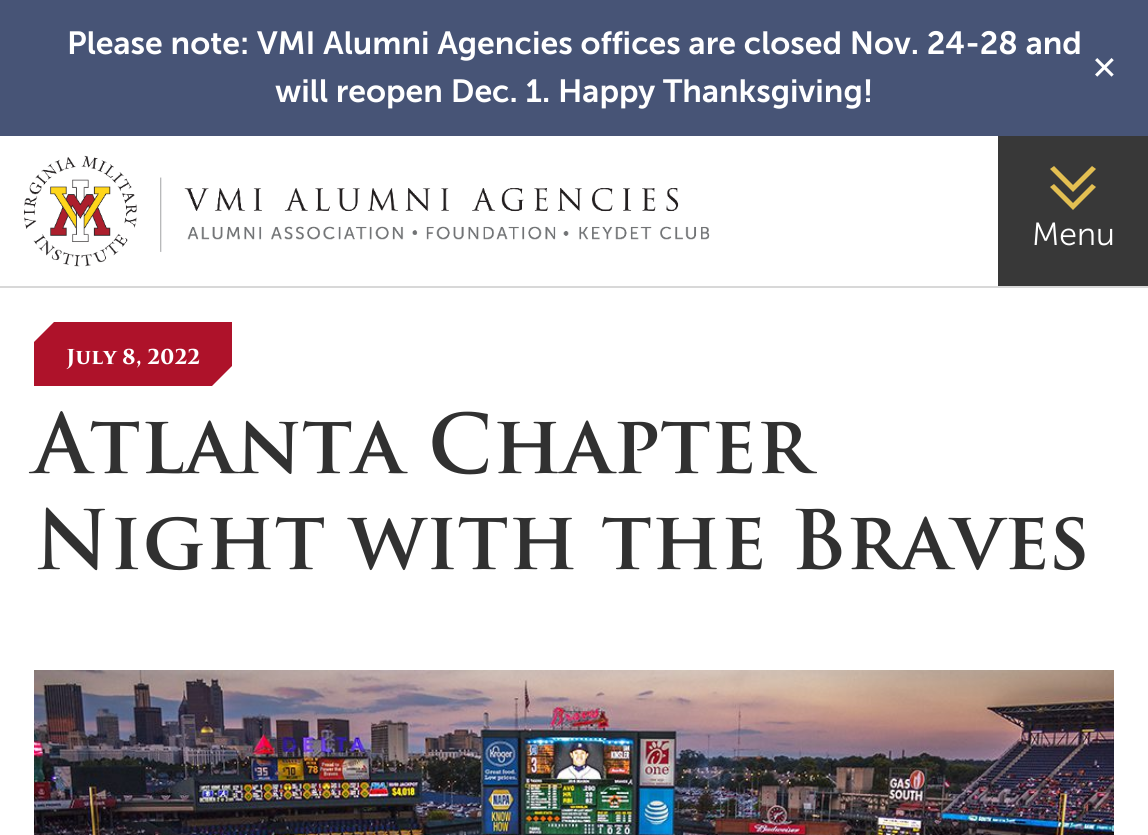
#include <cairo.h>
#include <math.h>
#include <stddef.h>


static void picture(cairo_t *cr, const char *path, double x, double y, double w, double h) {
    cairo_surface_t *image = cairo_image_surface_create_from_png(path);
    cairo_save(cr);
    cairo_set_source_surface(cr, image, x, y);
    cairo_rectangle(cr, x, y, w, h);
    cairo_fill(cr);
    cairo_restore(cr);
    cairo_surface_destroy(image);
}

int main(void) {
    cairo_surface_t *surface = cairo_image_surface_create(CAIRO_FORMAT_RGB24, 1148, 835);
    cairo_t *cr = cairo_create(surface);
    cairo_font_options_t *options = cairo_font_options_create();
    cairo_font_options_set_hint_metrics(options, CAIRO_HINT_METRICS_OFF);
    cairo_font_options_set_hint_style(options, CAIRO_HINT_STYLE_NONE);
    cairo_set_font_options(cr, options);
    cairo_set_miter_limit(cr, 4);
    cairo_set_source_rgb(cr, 1, 1, 1);
    cairo_paint(cr);
    cairo_set_source_rgb(cr, 0.278, 0.329, 0.463);
    cairo_rectangle(cr, 0, 0, 1148, 136);
    cairo_fill(cr);
    cairo_select_font_face(cr, "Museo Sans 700 SemiBold", CAIRO_FONT_SLANT_NORMAL, CAIRO_FONT_WEIGHT_NORMAL);
    cairo_set_font_size(cr, 32);
    cairo_set_source_rgb(cr, 1, 1, 1);
    cairo_move_to(cr, 67, 54);
    cairo_show_text(cr, "Please note: VMI Alumni Agencies offices are closed Nov. 24-28 and");
    cairo_move_to(cr, 275, 102);
    cairo_show_text(cr, "will reopen Dec. 1. Happy Thanksgiving!");
    cairo_select_font_face(cr, "DejaVu Sans", CAIRO_FONT_SLANT_NORMAL, CAIRO_FONT_WEIGHT_NORMAL);
    cairo_move_to(cr, 1091, 79);
    cairo_show_text(cr, "✕");
    cairo_set_source_rgb(cr, 0.847, 0.847, 0.847);
    cairo_rectangle(cr, 0, 286, 1148, 2);
    cairo_fill(cr);
    picture(cr, "img1.png", 24, 155, 686, 112);
    cairo_set_source_rgb(cr, 0.22, 0.22, 0.22);
    cairo_rectangle(cr, 998, 136, 150, 150);
    cairo_fill(cr);
    cairo_set_source_rgb(cr, 0.89, 0.749, 0.322);
    cairo_new_path(cr);
    cairo_move_to(cr, 1092, 184);
    cairo_line_to(cr, 1096, 187);
    cairo_line_to(cr, 1073, 210);
    cairo_line_to(cr, 1050, 187);
    cairo_line_to(cr, 1054, 184);
    cairo_line_to(cr, 1073, 203);
    cairo_close_path(cr);
    cairo_move_to(cr, 1073, 185);
    cairo_line_to(cr, 1092, 166);
    cairo_line_to(cr, 1096, 169);
    cairo_line_to(cr, 1073, 192);
    cairo_line_to(cr, 1050, 169);
    cairo_line_to(cr, 1054, 166);
    cairo_close_path(cr);
    cairo_fill(cr);
    cairo_select_font_face(cr, "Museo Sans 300 Light", CAIRO_FONT_SLANT_NORMAL, CAIRO_FONT_WEIGHT_NORMAL);
    cairo_set_source_rgb(cr, 1, 1, 1);
    cairo_move_to(cr, 1032, 245);
    cairo_show_text(cr, "Menu");
    cairo_set_source_rgb(cr, 0.682, 0.071, 0.165);
    cairo_new_path(cr);
    cairo_move_to(cr, 54, 322);
    cairo_line_to(cr, 34, 342);
    cairo_line_to(cr, 34, 386);
    cairo_line_to(cr, 212, 386);
    cairo_line_to(cr, 232, 366);
    cairo_line_to(cr, 232, 322);
    cairo_close_path(cr);
    cairo_fill(cr);
    cairo_select_font_face(cr, "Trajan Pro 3", CAIRO_FONT_SLANT_NORMAL, CAIRO_FONT_WEIGHT_BOLD);
    cairo_set_font_size(cr, 20);
    cairo_set_source_rgb(cr, 1, 1, 1);
    cairo_move_to(cr, 66, 364);
    cairo_show_text(cr, "July 8, 2022");
    cairo_select_font_face(cr, "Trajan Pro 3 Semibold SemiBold", CAIRO_FONT_SLANT_NORMAL, CAIRO_FONT_WEIGHT_NORMAL);
    cairo_set_font_size(cr, 80);
    cairo_set_source_rgb(cr, 0.192, 0.192, 0.192);
    cairo_move_to(cr, 34, 473);
    cairo_show_text(cr, "Atlanta Chapter");
    cairo_move_to(cr, 34, 569);
    cairo_show_text(cr, "Night with the Braves");
    picture(cr, "img2.png", 34, 670, 1080, 165);
    cairo_surface_write_to_png(surface, "page.png");
    cairo_font_options_destroy(options);
    cairo_destroy(cr);
    cairo_surface_destroy(surface);
    return 0;
}
